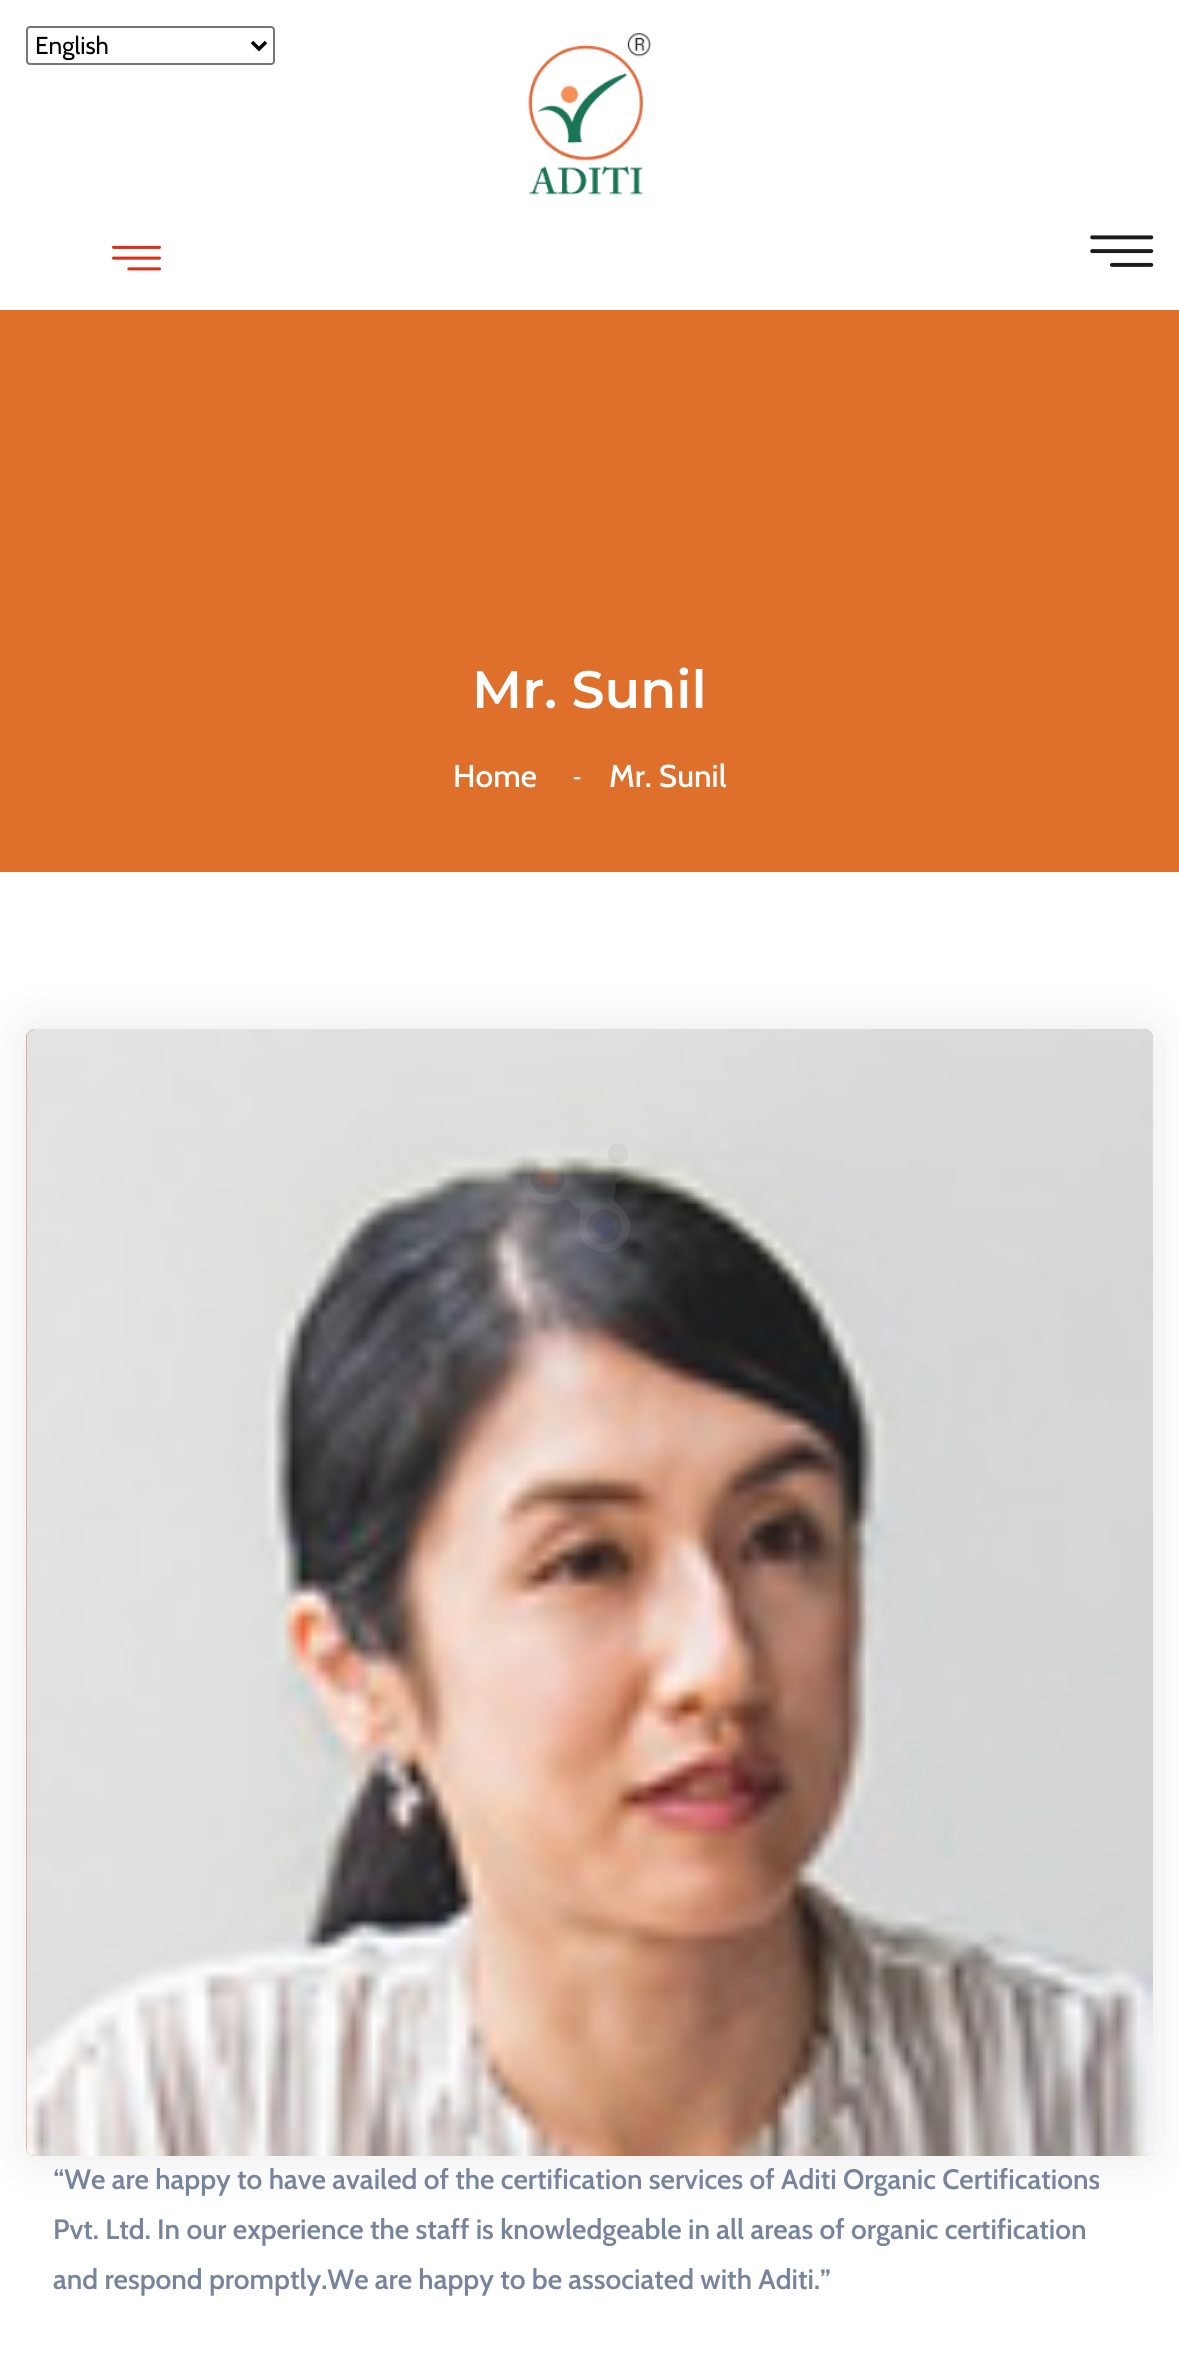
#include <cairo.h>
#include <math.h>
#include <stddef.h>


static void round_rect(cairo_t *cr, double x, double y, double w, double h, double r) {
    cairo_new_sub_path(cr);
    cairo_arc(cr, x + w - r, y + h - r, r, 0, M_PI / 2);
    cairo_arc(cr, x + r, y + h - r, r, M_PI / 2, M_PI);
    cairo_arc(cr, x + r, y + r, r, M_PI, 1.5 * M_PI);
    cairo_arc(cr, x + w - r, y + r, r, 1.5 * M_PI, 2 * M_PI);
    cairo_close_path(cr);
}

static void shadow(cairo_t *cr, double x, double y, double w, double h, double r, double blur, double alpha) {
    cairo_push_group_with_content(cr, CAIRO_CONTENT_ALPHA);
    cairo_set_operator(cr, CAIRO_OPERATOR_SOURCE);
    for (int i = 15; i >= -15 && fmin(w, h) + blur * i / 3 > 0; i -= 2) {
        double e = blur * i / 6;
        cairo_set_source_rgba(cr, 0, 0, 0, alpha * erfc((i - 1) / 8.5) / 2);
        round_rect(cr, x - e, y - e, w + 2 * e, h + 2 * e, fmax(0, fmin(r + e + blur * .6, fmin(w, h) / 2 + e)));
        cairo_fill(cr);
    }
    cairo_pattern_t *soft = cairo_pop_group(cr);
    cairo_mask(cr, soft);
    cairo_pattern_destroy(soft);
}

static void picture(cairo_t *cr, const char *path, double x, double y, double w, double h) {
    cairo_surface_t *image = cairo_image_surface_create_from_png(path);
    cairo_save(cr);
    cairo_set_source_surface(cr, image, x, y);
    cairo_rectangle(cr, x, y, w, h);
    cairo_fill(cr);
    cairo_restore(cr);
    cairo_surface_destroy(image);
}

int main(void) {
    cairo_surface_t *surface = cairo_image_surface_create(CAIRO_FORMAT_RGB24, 1179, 2373);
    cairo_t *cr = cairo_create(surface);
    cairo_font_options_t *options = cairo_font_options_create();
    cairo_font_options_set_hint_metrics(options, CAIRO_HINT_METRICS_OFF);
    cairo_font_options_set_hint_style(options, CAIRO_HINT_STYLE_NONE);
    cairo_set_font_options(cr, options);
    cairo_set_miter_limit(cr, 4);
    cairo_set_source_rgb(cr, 1, 1, 1);
    cairo_paint(cr);
    round_rect(cr, 27, 27, 247, 37, 3);
    cairo_set_source_rgb(cr, 0.463, 0.463, 0.463);
    cairo_stroke(cr);
    cairo_new_path(cr);
    cairo_move_to(cr, 252, 42);
    cairo_line_to(cr, 259, 49);
    cairo_line_to(cr, 266, 42);
    cairo_set_source_rgb(cr, 0, 0, 0);
    cairo_set_line_width(cr, 3.5);
    cairo_stroke(cr);
    cairo_select_font_face(cr, "Cabin", CAIRO_FONT_SLANT_NORMAL, CAIRO_FONT_WEIGHT_NORMAL);
    cairo_set_font_size(cr, 24.5);
    cairo_move_to(cr, 35, 54);
    cairo_show_text(cr, "English");
    picture(cr, "img1.png", 528, 33, 123, 162);
    picture(cr, "img2.png", 112, 245, 49, 26);
    picture(cr, "img3.png", 1090, 235, 64, 32);
    cairo_set_source_rgb(cr, 0.871, 0.439, 0.173);
    cairo_rectangle(cr, 0, 310, 1179, 562);
    cairo_fill(cr);
    cairo_select_font_face(cr, "Montserrat SemiBold", CAIRO_FONT_SLANT_NORMAL, CAIRO_FONT_WEIGHT_NORMAL);
    cairo_set_font_size(cr, 52.5);
    cairo_set_source_rgb(cr, 1, 1, 1);
    cairo_move_to(cr, 472, 708);
    cairo_show_text(cr, "Mr. Sunil");
    cairo_select_font_face(cr, "Cabin Medium", CAIRO_FONT_SLANT_NORMAL, CAIRO_FONT_WEIGHT_NORMAL);
    cairo_set_font_size(cr, 31.5);
    cairo_move_to(cr, 453, 787);
    cairo_show_text(cr, "Home");
    cairo_select_font_face(cr, "Liberation Serif", CAIRO_FONT_SLANT_NORMAL, CAIRO_FONT_WEIGHT_BOLD);
    cairo_set_font_size(cr, 24.5);
    cairo_move_to(cr, 573, 784);
    cairo_show_text(cr, "-");
    cairo_select_font_face(cr, "Cabin Medium", CAIRO_FONT_SLANT_NORMAL, CAIRO_FONT_WEIGHT_NORMAL);
    cairo_set_font_size(cr, 31.5);
    cairo_move_to(cr, 609, 787);
    cairo_show_text(cr, "Mr. Sunil");
    cairo_set_source_rgb(cr, 0.102, 0.102, 0.102);
    shadow(cr, 26, 1029, 1127, 1127, 9, 26, 0.1);
    cairo_set_source_rgb(cr, 0.871, 0.439, 0.173);
    round_rect(cr, 26, 1029, 1127, 1127, 9);
    cairo_fill(cr);
    picture(cr, "img5.png", 26, 1029, 1127, 1127);
    picture(cr, "img4.png", 522, 1143, 113, 109);
    cairo_select_font_face(cr, "Cabin SemiBold", CAIRO_FONT_SLANT_NORMAL, CAIRO_FONT_WEIGHT_NORMAL);
    cairo_set_font_size(cr, 28);
    cairo_set_source_rgb(cr, 0.467, 0.518, 0.62);
    cairo_move_to(cr, 53, 2189);
    cairo_show_text(cr, "“We are happy to have availed of the certification services of Aditi Organic Certifications");
    cairo_move_to(cr, 53, 2239);
    cairo_show_text(cr, "Pvt. Ltd. In our experience the staff is knowledgeable in all areas of organic certification");
    cairo_move_to(cr, 53, 2289);
    cairo_show_text(cr, "and respond promptly.We are happy to be associated with Aditi.”");
    cairo_surface_write_to_png(surface, "page.png");
    cairo_font_options_destroy(options);
    cairo_destroy(cr);
    cairo_surface_destroy(surface);
    return 0;
}
